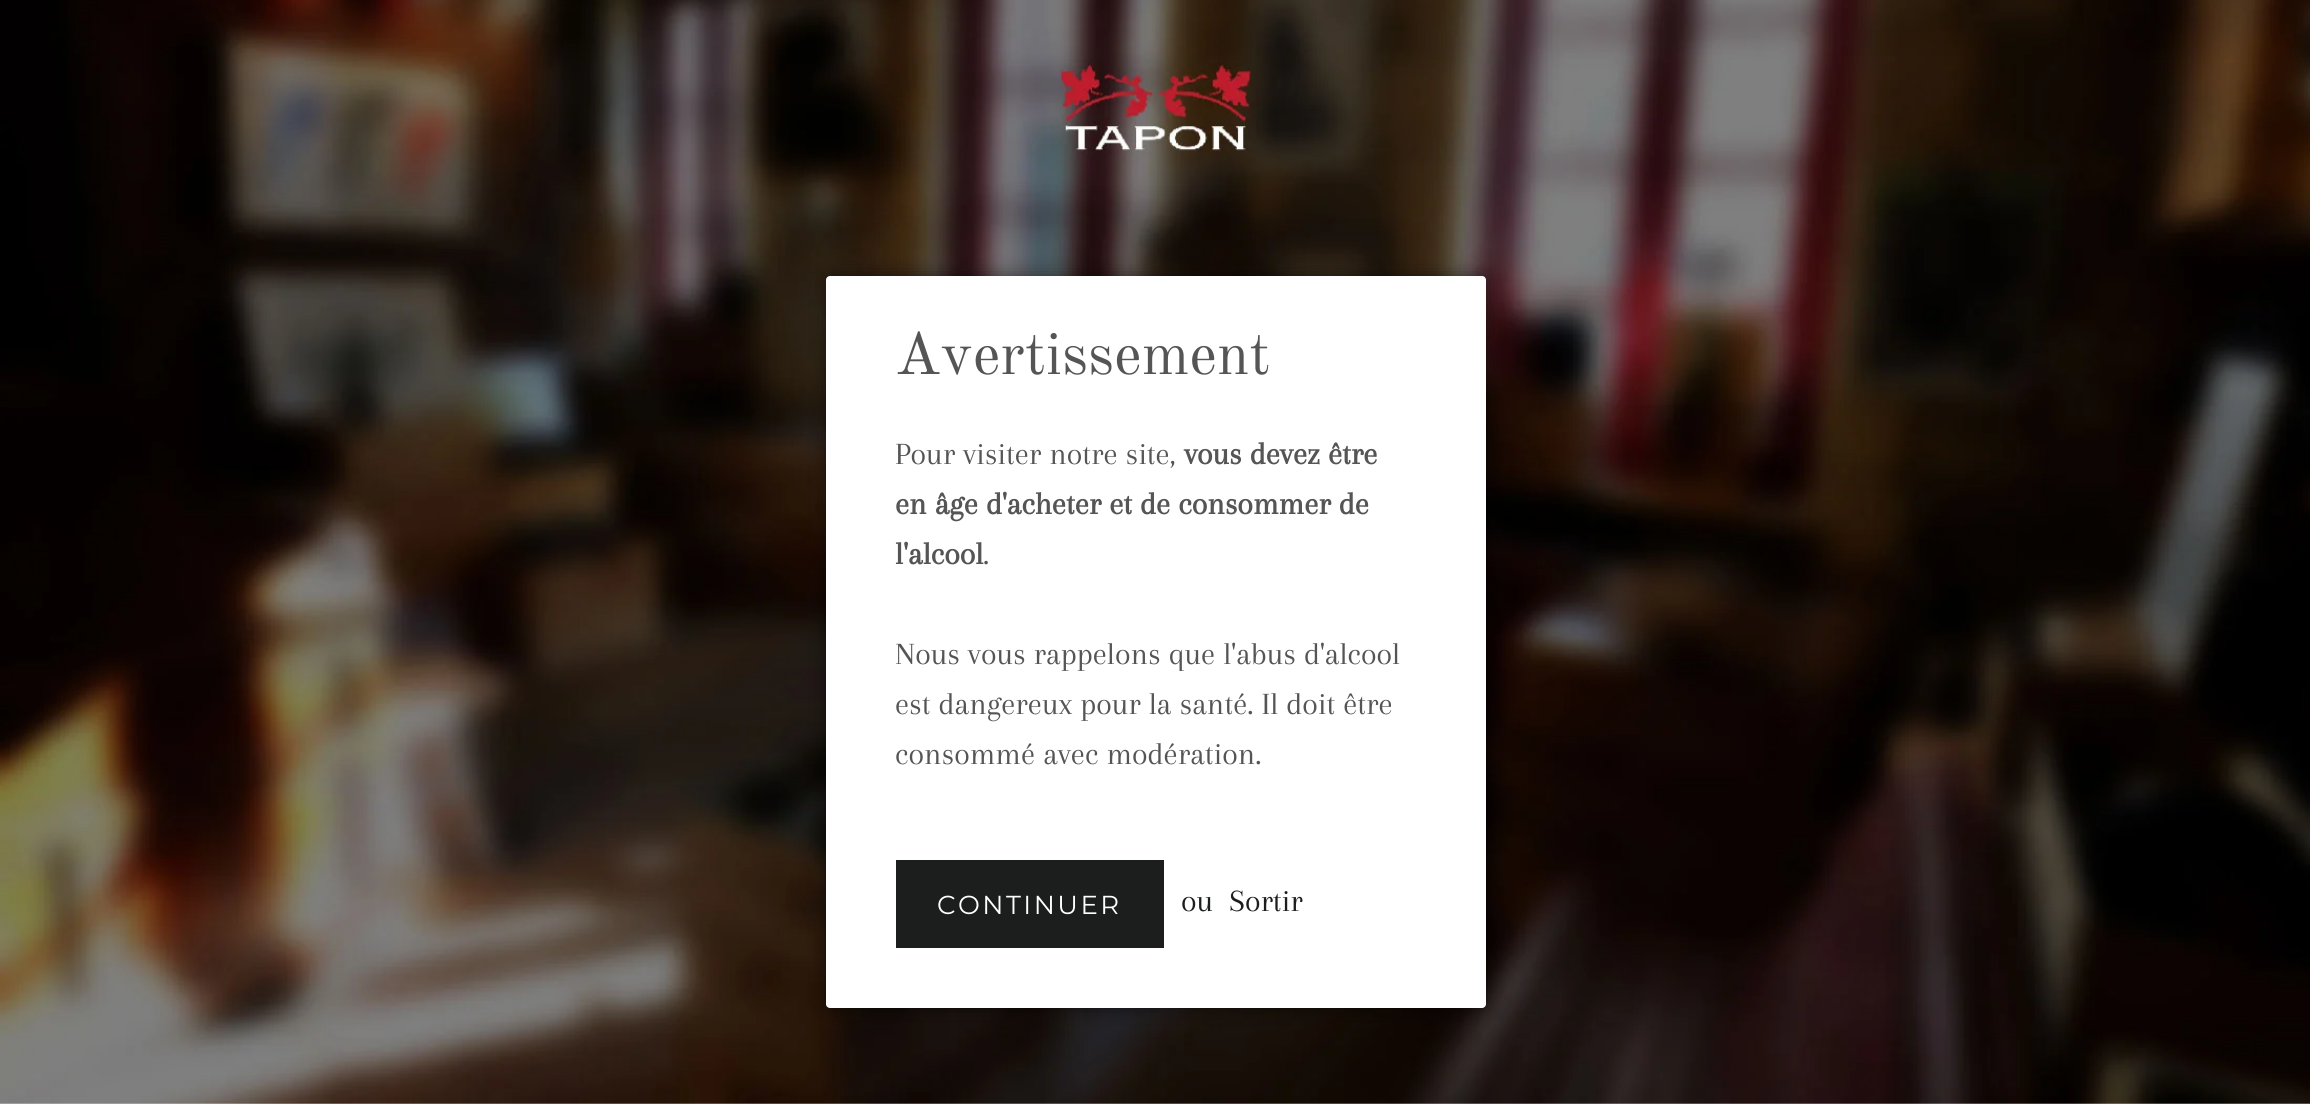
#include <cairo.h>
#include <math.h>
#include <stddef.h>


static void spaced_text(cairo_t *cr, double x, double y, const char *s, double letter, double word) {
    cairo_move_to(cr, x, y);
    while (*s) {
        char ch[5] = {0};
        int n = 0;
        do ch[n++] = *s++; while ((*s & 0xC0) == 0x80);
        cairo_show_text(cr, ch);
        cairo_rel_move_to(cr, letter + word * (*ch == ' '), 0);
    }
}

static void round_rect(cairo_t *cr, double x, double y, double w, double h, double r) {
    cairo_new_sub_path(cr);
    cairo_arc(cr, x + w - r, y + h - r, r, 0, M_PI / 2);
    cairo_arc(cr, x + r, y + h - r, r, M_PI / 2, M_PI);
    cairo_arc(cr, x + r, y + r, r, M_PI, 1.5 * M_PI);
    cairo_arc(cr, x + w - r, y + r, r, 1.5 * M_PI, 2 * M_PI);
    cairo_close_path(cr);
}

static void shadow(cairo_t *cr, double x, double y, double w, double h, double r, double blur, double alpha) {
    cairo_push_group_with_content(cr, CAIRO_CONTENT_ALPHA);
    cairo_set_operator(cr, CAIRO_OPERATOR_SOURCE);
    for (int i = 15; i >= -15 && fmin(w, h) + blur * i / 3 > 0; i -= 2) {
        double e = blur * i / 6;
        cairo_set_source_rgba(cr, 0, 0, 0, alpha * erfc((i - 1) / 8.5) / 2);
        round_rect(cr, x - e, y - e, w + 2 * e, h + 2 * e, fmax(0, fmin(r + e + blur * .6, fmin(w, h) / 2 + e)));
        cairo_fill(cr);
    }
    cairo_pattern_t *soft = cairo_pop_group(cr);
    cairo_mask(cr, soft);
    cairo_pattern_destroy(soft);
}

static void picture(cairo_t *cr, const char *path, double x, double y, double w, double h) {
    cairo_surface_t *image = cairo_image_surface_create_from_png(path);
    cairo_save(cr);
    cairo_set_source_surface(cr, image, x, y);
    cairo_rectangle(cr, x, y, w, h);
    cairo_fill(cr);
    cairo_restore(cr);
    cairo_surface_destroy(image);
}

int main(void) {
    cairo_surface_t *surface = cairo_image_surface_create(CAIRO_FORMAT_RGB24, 2310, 1104);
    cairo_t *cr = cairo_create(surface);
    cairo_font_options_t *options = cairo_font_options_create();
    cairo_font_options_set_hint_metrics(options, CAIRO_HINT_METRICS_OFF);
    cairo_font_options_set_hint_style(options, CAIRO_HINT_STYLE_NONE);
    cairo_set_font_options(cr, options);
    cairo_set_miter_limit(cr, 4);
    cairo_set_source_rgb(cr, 1, 1, 1);
    cairo_paint(cr);
    picture(cr, "img1.png", 0, 0, 2310, 1104);
    cairo_set_source_rgb(cr, 0, 0, 0);
    shadow(cr, 826, 276, 660, 732, 4, 10, 0.5);
    cairo_set_source_rgb(cr, 1, 1, 1);
    round_rect(cr, 826, 276, 660, 732, 4);
    cairo_fill(cr);
    cairo_select_font_face(cr, "Old Standard TT", CAIRO_FONT_SLANT_NORMAL, CAIRO_FONT_WEIGHT_NORMAL);
    cairo_set_font_size(cr, 60);
    cairo_set_source_rgb(cr, 0.333, 0.333, 0.333);
    cairo_move_to(cr, 895, 374);
    cairo_show_text(cr, "Avertissement");
    cairo_select_font_face(cr, "Arapey", CAIRO_FONT_SLANT_NORMAL, CAIRO_FONT_WEIGHT_NORMAL);
    cairo_set_font_size(cr, 32);
    cairo_move_to(cr, 895, 464);
    cairo_show_text(cr, "Pour visiter notre site,");
    cairo_select_font_face(cr, "Arapey", CAIRO_FONT_SLANT_NORMAL, CAIRO_FONT_WEIGHT_BOLD);
    cairo_move_to(cr, 1184, 464);
    cairo_show_text(cr, "vous devez être");
    cairo_move_to(cr, 895, 514);
    cairo_show_text(cr, "en âge d'acheter et de consommer de");
    cairo_move_to(cr, 895, 564);
    cairo_show_text(cr, "l'alcool");
    cairo_select_font_face(cr, "Arapey", CAIRO_FONT_SLANT_NORMAL, CAIRO_FONT_WEIGHT_NORMAL);
    cairo_move_to(cr, 983, 564);
    cairo_show_text(cr, ".");
    cairo_move_to(cr, 895, 664);
    cairo_show_text(cr, "Nous vous rappelons que l'abus d'alcool");
    cairo_move_to(cr, 895, 714);
    cairo_show_text(cr, "est dangereux pour la santé. Il doit être");
    cairo_move_to(cr, 895, 764);
    cairo_show_text(cr, "consommé avec modération.");
    cairo_set_source_rgb(cr, 0.11, 0.114, 0.114);
    cairo_rectangle(cr, 896, 860, 268, 88);
    cairo_fill(cr);
    cairo_select_font_face(cr, "Montserrat Thin", CAIRO_FONT_SLANT_NORMAL, CAIRO_FONT_WEIGHT_NORMAL);
    cairo_set_font_size(cr, 26);
    cairo_set_source_rgb(cr, 1, 1, 1);
    spaced_text(cr, 937, 914, "CONTINUER", 2.5, 0);
    cairo_select_font_face(cr, "Arapey", CAIRO_FONT_SLANT_NORMAL, CAIRO_FONT_WEIGHT_NORMAL);
    cairo_set_font_size(cr, 32);
    cairo_set_source_rgb(cr, 0.11, 0.114, 0.114);
    cairo_move_to(cr, 1181, 911);
    cairo_show_text(cr, "ou");
    cairo_move_to(cr, 1229, 911);
    cairo_show_text(cr, "Sortir");
    cairo_surface_write_to_png(surface, "page.png");
    cairo_font_options_destroy(options);
    cairo_destroy(cr);
    cairo_surface_destroy(surface);
    return 0;
}
